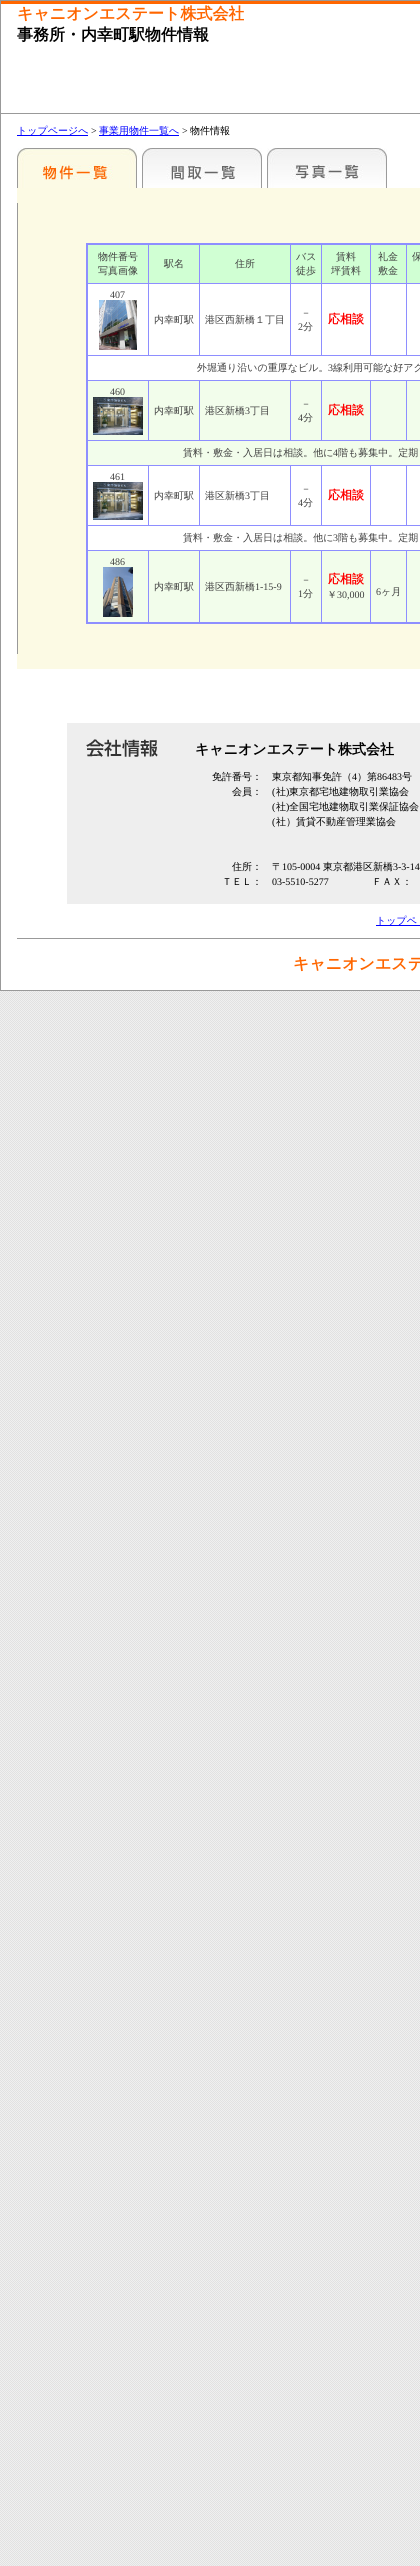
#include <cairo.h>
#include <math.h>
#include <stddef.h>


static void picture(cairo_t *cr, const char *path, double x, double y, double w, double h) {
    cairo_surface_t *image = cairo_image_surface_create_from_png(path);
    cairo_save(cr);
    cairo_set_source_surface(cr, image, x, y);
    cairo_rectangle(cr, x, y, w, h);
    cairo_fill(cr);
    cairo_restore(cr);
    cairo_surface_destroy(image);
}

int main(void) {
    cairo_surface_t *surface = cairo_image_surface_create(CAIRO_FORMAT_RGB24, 420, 2566);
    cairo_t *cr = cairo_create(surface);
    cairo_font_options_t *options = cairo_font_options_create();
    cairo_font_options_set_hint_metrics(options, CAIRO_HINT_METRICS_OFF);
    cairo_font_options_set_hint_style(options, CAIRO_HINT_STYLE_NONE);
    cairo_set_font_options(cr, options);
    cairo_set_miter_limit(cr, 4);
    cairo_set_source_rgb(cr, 1, 1, 1);
    cairo_paint(cr);
    picture(cr, "img1.png", 0, 991, 420, 1575);
    cairo_rectangle(cr, 0.5, 0.5, 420, 990);
    cairo_set_source_rgb(cr, 0.6, 0.6, 0.6);
    cairo_set_line_width(cr, 1);
    cairo_stroke(cr);
    cairo_set_source_rgb(cr, 1, 0.4, 0);
    cairo_rectangle(cr, 1, 1, 419, 3);
    cairo_fill(cr);
    cairo_set_source_rgb(cr, 0.6, 0.6, 0.6);
    cairo_rectangle(cr, 1, 113, 419, 1);
    cairo_fill(cr);
    cairo_select_font_face(cr, "WenQuanYi Zen Hei", CAIRO_FONT_SLANT_NORMAL, CAIRO_FONT_WEIGHT_BOLD);
    cairo_set_font_size(cr, 16);
    cairo_set_source_rgb(cr, 1, 0.4, 0);
    cairo_move_to(cr, 17, 19);
    cairo_show_text(cr, "キャニオンエステート株式会社");
    cairo_set_source_rgb(cr, 0, 0, 0);
    cairo_move_to(cr, 17, 40);
    cairo_show_text(cr, "事務所・内幸町駅物件情報");
    cairo_set_source_rgb(cr, 0, 0, 1);
    cairo_rectangle(cr, 17, 135, 71, 1);
    cairo_fill(cr);
    cairo_select_font_face(cr, "WenQuanYi Zen Hei Medium", CAIRO_FONT_SLANT_NORMAL, CAIRO_FONT_WEIGHT_NORMAL);
    cairo_set_font_size(cr, 10);
    cairo_move_to(cr, 17, 134);
    cairo_show_text(cr, "トップページへ");
    cairo_select_font_face(cr, "Liberation Serif", CAIRO_FONT_SLANT_NORMAL, CAIRO_FONT_WEIGHT_NORMAL);
    cairo_set_source_rgb(cr, 0, 0, 0);
    cairo_move_to(cr, 91, 134);
    cairo_show_text(cr, ">");
    cairo_set_source_rgb(cr, 0, 0, 1);
    cairo_rectangle(cr, 99, 135, 80, 1);
    cairo_fill(cr);
    cairo_select_font_face(cr, "WenQuanYi Zen Hei Medium", CAIRO_FONT_SLANT_NORMAL, CAIRO_FONT_WEIGHT_NORMAL);
    cairo_move_to(cr, 99, 134);
    cairo_show_text(cr, "事業用物件一覧へ");
    cairo_select_font_face(cr, "Liberation Serif", CAIRO_FONT_SLANT_NORMAL, CAIRO_FONT_WEIGHT_NORMAL);
    cairo_set_source_rgb(cr, 0, 0, 0);
    cairo_move_to(cr, 182, 134);
    cairo_show_text(cr, ">");
    cairo_select_font_face(cr, "WenQuanYi Zen Hei Medium", CAIRO_FONT_SLANT_NORMAL, CAIRO_FONT_WEIGHT_NORMAL);
    cairo_move_to(cr, 190, 134);
    cairo_show_text(cr, "物件情報");
    picture(cr, "img2.png", 17, 148, 120, 40);
    picture(cr, "img3.png", 142, 148, 120, 40);
    picture(cr, "img4.png", 267, 148, 120, 40);
    cairo_set_source_rgb(cr, 0.988, 0.98, 0.894);
    cairo_rectangle(cr, 17, 188, 403, 15);
    cairo_fill(cr);
    cairo_rectangle(cr, 18, 203, 402, 451);
    cairo_fill(cr);
    cairo_set_source_rgb(cr, 0.6, 0.6, 0.6);
    cairo_rectangle(cr, 17, 203, 1, 451);
    cairo_fill(cr);
    cairo_set_source_rgb(cr, 0.557, 0.557, 1);
    cairo_rectangle(cr, 406, 283, 14, 1);
    cairo_fill(cr);
    cairo_rectangle(cr, 86, 355, 334, 1);
    cairo_fill(cr);
    cairo_rectangle(cr, 406, 283, 1, 73);
    cairo_fill(cr);
    cairo_rectangle(cr, 370, 283, 37, 1);
    cairo_fill(cr);
    cairo_rectangle(cr, 370, 283, 1, 73);
    cairo_fill(cr);
    cairo_rectangle(cr, 321, 283, 50, 1);
    cairo_fill(cr);
    cairo_rectangle(cr, 321, 283, 1, 73);
    cairo_fill(cr);
    cairo_rectangle(cr, 290, 283, 32, 1);
    cairo_fill(cr);
    cairo_rectangle(cr, 290, 283, 1, 73);
    cairo_fill(cr);
    cairo_rectangle(cr, 199, 283, 92, 1);
    cairo_fill(cr);
    cairo_rectangle(cr, 290, 244, 1, 40);
    cairo_fill(cr);
    cairo_rectangle(cr, 321, 244, 1, 40);
    cairo_fill(cr);
    cairo_rectangle(cr, 370, 244, 1, 40);
    cairo_fill(cr);
    cairo_rectangle(cr, 406, 244, 1, 40);
    cairo_fill(cr);
    cairo_rectangle(cr, 199, 283, 1, 73);
    cairo_fill(cr);
    cairo_rectangle(cr, 148, 283, 52, 1);
    cairo_fill(cr);
    cairo_rectangle(cr, 148, 283, 1, 73);
    cairo_fill(cr);
    cairo_rectangle(cr, 86, 283, 63, 1);
    cairo_fill(cr);
    cairo_rectangle(cr, 148, 244, 1, 40);
    cairo_fill(cr);
    cairo_rectangle(cr, 199, 244, 1, 40);
    cairo_fill(cr);
    cairo_rectangle(cr, 86, 243, 334, 2);
    cairo_fill(cr);
    cairo_rectangle(cr, 406, 550, 14, 1);
    cairo_fill(cr);
    cairo_rectangle(cr, 406, 550, 1, 74);
    cairo_fill(cr);
    cairo_rectangle(cr, 370, 550, 37, 1);
    cairo_fill(cr);
    cairo_rectangle(cr, 370, 550, 1, 74);
    cairo_fill(cr);
    cairo_rectangle(cr, 321, 550, 50, 1);
    cairo_fill(cr);
    cairo_rectangle(cr, 321, 550, 1, 74);
    cairo_fill(cr);
    cairo_rectangle(cr, 290, 550, 32, 1);
    cairo_fill(cr);
    cairo_rectangle(cr, 290, 550, 1, 74);
    cairo_fill(cr);
    cairo_rectangle(cr, 199, 550, 92, 1);
    cairo_fill(cr);
    cairo_rectangle(cr, 199, 550, 1, 74);
    cairo_fill(cr);
    cairo_rectangle(cr, 148, 550, 52, 1);
    cairo_fill(cr);
    cairo_rectangle(cr, 148, 550, 1, 74);
    cairo_fill(cr);
    cairo_rectangle(cr, 86, 622, 334, 2);
    cairo_fill(cr);
    cairo_rectangle(cr, 406, 380, 14, 1);
    cairo_fill(cr);
    cairo_rectangle(cr, 86, 440, 334, 1);
    cairo_fill(cr);
    cairo_rectangle(cr, 406, 380, 1, 61);
    cairo_fill(cr);
    cairo_rectangle(cr, 370, 380, 37, 1);
    cairo_fill(cr);
    cairo_rectangle(cr, 370, 380, 1, 61);
    cairo_fill(cr);
    cairo_rectangle(cr, 321, 380, 50, 1);
    cairo_fill(cr);
    cairo_rectangle(cr, 321, 380, 1, 61);
    cairo_fill(cr);
    cairo_rectangle(cr, 290, 380, 32, 1);
    cairo_fill(cr);
    cairo_rectangle(cr, 290, 380, 1, 61);
    cairo_fill(cr);
    cairo_rectangle(cr, 199, 380, 92, 1);
    cairo_fill(cr);
    cairo_rectangle(cr, 199, 380, 1, 61);
    cairo_fill(cr);
    cairo_rectangle(cr, 148, 380, 52, 1);
    cairo_fill(cr);
    cairo_rectangle(cr, 148, 380, 1, 61);
    cairo_fill(cr);
    cairo_rectangle(cr, 86, 380, 63, 1);
    cairo_fill(cr);
    cairo_rectangle(cr, 406, 465, 14, 1);
    cairo_fill(cr);
    cairo_rectangle(cr, 86, 525, 334, 1);
    cairo_fill(cr);
    cairo_rectangle(cr, 406, 465, 1, 61);
    cairo_fill(cr);
    cairo_rectangle(cr, 370, 465, 37, 1);
    cairo_fill(cr);
    cairo_rectangle(cr, 370, 465, 1, 61);
    cairo_fill(cr);
    cairo_rectangle(cr, 321, 465, 50, 1);
    cairo_fill(cr);
    cairo_rectangle(cr, 321, 465, 1, 61);
    cairo_fill(cr);
    cairo_rectangle(cr, 290, 465, 32, 1);
    cairo_fill(cr);
    cairo_rectangle(cr, 290, 465, 1, 61);
    cairo_fill(cr);
    cairo_rectangle(cr, 199, 465, 92, 1);
    cairo_fill(cr);
    cairo_rectangle(cr, 199, 465, 1, 61);
    cairo_fill(cr);
    cairo_rectangle(cr, 148, 465, 52, 1);
    cairo_fill(cr);
    cairo_rectangle(cr, 148, 465, 1, 61);
    cairo_fill(cr);
    cairo_rectangle(cr, 86, 465, 63, 1);
    cairo_fill(cr);
    cairo_rectangle(cr, 86, 550, 63, 1);
    cairo_fill(cr);
    cairo_rectangle(cr, 86, 243, 2, 381);
    cairo_fill(cr);
    cairo_set_source_rgb(cr, 0.816, 1, 0.827);
    cairo_rectangle(cr, 88, 245, 60, 38);
    cairo_fill(cr);
    cairo_set_source_rgb(cr, 0.247, 0.247, 0.247);
    cairo_move_to(cr, 98, 260);
    cairo_show_text(cr, "物件番号");
    cairo_move_to(cr, 98, 274);
    cairo_show_text(cr, "写真画像");
    cairo_set_source_rgb(cr, 0.816, 1, 0.827);
    cairo_rectangle(cr, 291, 245, 30, 38);
    cairo_fill(cr);
    cairo_set_source_rgb(cr, 0.247, 0.247, 0.247);
    cairo_move_to(cr, 296, 260);
    cairo_show_text(cr, "バス");
    cairo_move_to(cr, 296, 274);
    cairo_show_text(cr, "徒歩");
    cairo_set_source_rgb(cr, 0.816, 1, 0.827);
    cairo_rectangle(cr, 322, 245, 48, 38);
    cairo_fill(cr);
    cairo_set_source_rgb(cr, 0.247, 0.247, 0.247);
    cairo_move_to(cr, 336, 260);
    cairo_show_text(cr, "賃料");
    cairo_move_to(cr, 331, 274);
    cairo_show_text(cr, "坪賃料");
    cairo_set_source_rgb(cr, 0.816, 1, 0.827);
    cairo_rectangle(cr, 371, 245, 35, 38);
    cairo_fill(cr);
    cairo_set_source_rgb(cr, 0.247, 0.247, 0.247);
    cairo_move_to(cr, 378, 260);
    cairo_show_text(cr, "礼金");
    cairo_move_to(cr, 378, 274);
    cairo_show_text(cr, "敷金");
    cairo_set_source_rgb(cr, 0.816, 1, 0.827);
    cairo_rectangle(cr, 407, 245, 13, 38);
    cairo_fill(cr);
    cairo_set_source_rgb(cr, 0.247, 0.247, 0.247);
    cairo_move_to(cr, 412, 260);
    cairo_show_text(cr, "保");
    cairo_set_source_rgb(cr, 0.816, 1, 0.827);
    cairo_rectangle(cr, 149, 245, 50, 38);
    cairo_fill(cr);
    cairo_set_source_rgb(cr, 0.247, 0.247, 0.247);
    cairo_move_to(cr, 164, 267);
    cairo_show_text(cr, "駅名");
    cairo_set_source_rgb(cr, 0.816, 1, 0.827);
    cairo_rectangle(cr, 200, 245, 90, 38);
    cairo_fill(cr);
    cairo_set_source_rgb(cr, 0.247, 0.247, 0.247);
    cairo_move_to(cr, 235, 267);
    cairo_show_text(cr, "住所");
    cairo_set_source_rgb(cr, 1, 1, 1);
    cairo_rectangle(cr, 88, 284, 60, 71);
    cairo_fill(cr);
    cairo_select_font_face(cr, "Liberation Serif", CAIRO_FONT_SLANT_NORMAL, CAIRO_FONT_WEIGHT_NORMAL);
    cairo_set_source_rgb(cr, 0.247, 0.247, 0.247);
    cairo_move_to(cr, 110, 298);
    cairo_show_text(cr, "407");
    picture(cr, "img5.png", 99, 300, 38, 50);
    cairo_set_source_rgb(cr, 1, 1, 1);
    cairo_rectangle(cr, 371, 284, 35, 71);
    cairo_fill(cr);
    cairo_rectangle(cr, 407, 284, 13, 71);
    cairo_fill(cr);
    cairo_rectangle(cr, 149, 284, 50, 71);
    cairo_fill(cr);
    cairo_select_font_face(cr, "WenQuanYi Zen Hei Medium", CAIRO_FONT_SLANT_NORMAL, CAIRO_FONT_WEIGHT_NORMAL);
    cairo_set_source_rgb(cr, 0.247, 0.247, 0.247);
    cairo_move_to(cr, 154, 323);
    cairo_show_text(cr, "内幸町駅");
    cairo_set_source_rgb(cr, 1, 1, 1);
    cairo_rectangle(cr, 200, 284, 90, 71);
    cairo_fill(cr);
    cairo_set_source_rgb(cr, 0.247, 0.247, 0.247);
    cairo_move_to(cr, 205, 323);
    cairo_show_text(cr, "港区西新橋１丁目");
    cairo_set_source_rgb(cr, 1, 1, 1);
    cairo_rectangle(cr, 291, 284, 30, 71);
    cairo_fill(cr);
    cairo_set_source_rgb(cr, 0.247, 0.247, 0.247);
    cairo_move_to(cr, 301, 316);
    cairo_show_text(cr, "－");
    cairo_select_font_face(cr, "Liberation Serif", CAIRO_FONT_SLANT_NORMAL, CAIRO_FONT_WEIGHT_NORMAL);
    cairo_move_to(cr, 298, 330);
    cairo_show_text(cr, "2");
    cairo_select_font_face(cr, "WenQuanYi Zen Hei Medium", CAIRO_FONT_SLANT_NORMAL, CAIRO_FONT_WEIGHT_NORMAL);
    cairo_move_to(cr, 303, 330);
    cairo_show_text(cr, "分");
    cairo_set_source_rgb(cr, 1, 1, 1);
    cairo_rectangle(cr, 322, 284, 48, 71);
    cairo_fill(cr);
    cairo_select_font_face(cr, "WenQuanYi Zen Hei", CAIRO_FONT_SLANT_NORMAL, CAIRO_FONT_WEIGHT_BOLD);
    cairo_set_font_size(cr, 12);
    cairo_set_source_rgb(cr, 1, 0, 0);
    cairo_move_to(cr, 328, 323);
    cairo_show_text(cr, "応相談");
    cairo_set_source_rgb(cr, 1, 1, 1);
    cairo_rectangle(cr, 88, 356, 332, 24);
    cairo_fill(cr);
    cairo_select_font_face(cr, "WenQuanYi Zen Hei Medium", CAIRO_FONT_SLANT_NORMAL, CAIRO_FONT_WEIGHT_NORMAL);
    cairo_set_font_size(cr, 10);
    cairo_set_source_rgb(cr, 0.247, 0.247, 0.247);
    cairo_move_to(cr, 197, 371);
    cairo_show_text(cr, "外堀通り沿いの重厚なビル。");
    cairo_select_font_face(cr, "Liberation Serif", CAIRO_FONT_SLANT_NORMAL, CAIRO_FONT_WEIGHT_NORMAL);
    cairo_move_to(cr, 328, 371);
    cairo_show_text(cr, "3");
    cairo_select_font_face(cr, "WenQuanYi Zen Hei Medium", CAIRO_FONT_SLANT_NORMAL, CAIRO_FONT_WEIGHT_NORMAL);
    cairo_move_to(cr, 333, 371);
    cairo_show_text(cr, "線利用可能な好アク");
    cairo_set_source_rgb(cr, 0.949, 0.992, 0.918);
    cairo_rectangle(cr, 88, 381, 60, 59);
    cairo_fill(cr);
    cairo_select_font_face(cr, "Liberation Serif", CAIRO_FONT_SLANT_NORMAL, CAIRO_FONT_WEIGHT_NORMAL);
    cairo_set_source_rgb(cr, 0.247, 0.247, 0.247);
    cairo_move_to(cr, 110, 395);
    cairo_show_text(cr, "460");
    picture(cr, "img6.png", 93, 397, 50, 38);
    cairo_set_source_rgb(cr, 0.949, 0.992, 0.918);
    cairo_rectangle(cr, 371, 381, 35, 59);
    cairo_fill(cr);
    cairo_rectangle(cr, 407, 381, 13, 59);
    cairo_fill(cr);
    cairo_rectangle(cr, 149, 381, 50, 59);
    cairo_fill(cr);
    cairo_select_font_face(cr, "WenQuanYi Zen Hei Medium", CAIRO_FONT_SLANT_NORMAL, CAIRO_FONT_WEIGHT_NORMAL);
    cairo_set_source_rgb(cr, 0.247, 0.247, 0.247);
    cairo_move_to(cr, 154, 414);
    cairo_show_text(cr, "内幸町駅");
    cairo_set_source_rgb(cr, 0.949, 0.992, 0.918);
    cairo_rectangle(cr, 200, 381, 90, 59);
    cairo_fill(cr);
    cairo_set_source_rgb(cr, 0.247, 0.247, 0.247);
    cairo_move_to(cr, 205, 414);
    cairo_show_text(cr, "港区新橋");
    cairo_select_font_face(cr, "Liberation Serif", CAIRO_FONT_SLANT_NORMAL, CAIRO_FONT_WEIGHT_NORMAL);
    cairo_move_to(cr, 245, 414);
    cairo_show_text(cr, "3");
    cairo_select_font_face(cr, "WenQuanYi Zen Hei Medium", CAIRO_FONT_SLANT_NORMAL, CAIRO_FONT_WEIGHT_NORMAL);
    cairo_move_to(cr, 250, 414);
    cairo_show_text(cr, "丁目");
    cairo_set_source_rgb(cr, 0.949, 0.992, 0.918);
    cairo_rectangle(cr, 291, 381, 30, 59);
    cairo_fill(cr);
    cairo_set_source_rgb(cr, 0.247, 0.247, 0.247);
    cairo_move_to(cr, 301, 407);
    cairo_show_text(cr, "－");
    cairo_select_font_face(cr, "Liberation Serif", CAIRO_FONT_SLANT_NORMAL, CAIRO_FONT_WEIGHT_NORMAL);
    cairo_move_to(cr, 298, 421);
    cairo_show_text(cr, "4");
    cairo_select_font_face(cr, "WenQuanYi Zen Hei Medium", CAIRO_FONT_SLANT_NORMAL, CAIRO_FONT_WEIGHT_NORMAL);
    cairo_move_to(cr, 303, 421);
    cairo_show_text(cr, "分");
    cairo_set_source_rgb(cr, 0.949, 0.992, 0.918);
    cairo_rectangle(cr, 322, 381, 48, 59);
    cairo_fill(cr);
    cairo_select_font_face(cr, "WenQuanYi Zen Hei", CAIRO_FONT_SLANT_NORMAL, CAIRO_FONT_WEIGHT_BOLD);
    cairo_set_font_size(cr, 12);
    cairo_set_source_rgb(cr, 1, 0, 0);
    cairo_move_to(cr, 328, 414);
    cairo_show_text(cr, "応相談");
    cairo_set_source_rgb(cr, 0.949, 0.992, 0.918);
    cairo_rectangle(cr, 88, 441, 332, 24);
    cairo_fill(cr);
    cairo_select_font_face(cr, "WenQuanYi Zen Hei Medium", CAIRO_FONT_SLANT_NORMAL, CAIRO_FONT_WEIGHT_NORMAL);
    cairo_set_font_size(cr, 10);
    cairo_set_source_rgb(cr, 0.247, 0.247, 0.247);
    cairo_move_to(cr, 183, 456);
    cairo_show_text(cr, "賃料・敷金・入居日は相談。他に");
    cairo_select_font_face(cr, "Liberation Serif", CAIRO_FONT_SLANT_NORMAL, CAIRO_FONT_WEIGHT_NORMAL);
    cairo_move_to(cr, 333, 456);
    cairo_show_text(cr, "4");
    cairo_select_font_face(cr, "WenQuanYi Zen Hei Medium", CAIRO_FONT_SLANT_NORMAL, CAIRO_FONT_WEIGHT_NORMAL);
    cairo_move_to(cr, 338, 456);
    cairo_show_text(cr, "階も募集中。定期");
    cairo_set_source_rgb(cr, 1, 1, 1);
    cairo_rectangle(cr, 88, 466, 60, 59);
    cairo_fill(cr);
    cairo_select_font_face(cr, "Liberation Serif", CAIRO_FONT_SLANT_NORMAL, CAIRO_FONT_WEIGHT_NORMAL);
    cairo_set_source_rgb(cr, 0.247, 0.247, 0.247);
    cairo_move_to(cr, 110, 480);
    cairo_show_text(cr, "461");
    picture(cr, "img6.png", 93, 482, 50, 38);
    cairo_set_source_rgb(cr, 1, 1, 1);
    cairo_rectangle(cr, 371, 466, 35, 59);
    cairo_fill(cr);
    cairo_rectangle(cr, 407, 466, 13, 59);
    cairo_fill(cr);
    cairo_rectangle(cr, 149, 466, 50, 59);
    cairo_fill(cr);
    cairo_select_font_face(cr, "WenQuanYi Zen Hei Medium", CAIRO_FONT_SLANT_NORMAL, CAIRO_FONT_WEIGHT_NORMAL);
    cairo_set_source_rgb(cr, 0.247, 0.247, 0.247);
    cairo_move_to(cr, 154, 499);
    cairo_show_text(cr, "内幸町駅");
    cairo_set_source_rgb(cr, 1, 1, 1);
    cairo_rectangle(cr, 200, 466, 90, 59);
    cairo_fill(cr);
    cairo_set_source_rgb(cr, 0.247, 0.247, 0.247);
    cairo_move_to(cr, 205, 499);
    cairo_show_text(cr, "港区新橋");
    cairo_select_font_face(cr, "Liberation Serif", CAIRO_FONT_SLANT_NORMAL, CAIRO_FONT_WEIGHT_NORMAL);
    cairo_move_to(cr, 245, 499);
    cairo_show_text(cr, "3");
    cairo_select_font_face(cr, "WenQuanYi Zen Hei Medium", CAIRO_FONT_SLANT_NORMAL, CAIRO_FONT_WEIGHT_NORMAL);
    cairo_move_to(cr, 250, 499);
    cairo_show_text(cr, "丁目");
    cairo_set_source_rgb(cr, 1, 1, 1);
    cairo_rectangle(cr, 291, 466, 30, 59);
    cairo_fill(cr);
    cairo_set_source_rgb(cr, 0.247, 0.247, 0.247);
    cairo_move_to(cr, 301, 492);
    cairo_show_text(cr, "－");
    cairo_select_font_face(cr, "Liberation Serif", CAIRO_FONT_SLANT_NORMAL, CAIRO_FONT_WEIGHT_NORMAL);
    cairo_move_to(cr, 298, 506);
    cairo_show_text(cr, "4");
    cairo_select_font_face(cr, "WenQuanYi Zen Hei Medium", CAIRO_FONT_SLANT_NORMAL, CAIRO_FONT_WEIGHT_NORMAL);
    cairo_move_to(cr, 303, 506);
    cairo_show_text(cr, "分");
    cairo_set_source_rgb(cr, 1, 1, 1);
    cairo_rectangle(cr, 322, 466, 48, 59);
    cairo_fill(cr);
    cairo_select_font_face(cr, "WenQuanYi Zen Hei", CAIRO_FONT_SLANT_NORMAL, CAIRO_FONT_WEIGHT_BOLD);
    cairo_set_font_size(cr, 12);
    cairo_set_source_rgb(cr, 1, 0, 0);
    cairo_move_to(cr, 328, 499);
    cairo_show_text(cr, "応相談");
    cairo_set_source_rgb(cr, 1, 1, 1);
    cairo_rectangle(cr, 88, 526, 332, 24);
    cairo_fill(cr);
    cairo_select_font_face(cr, "WenQuanYi Zen Hei Medium", CAIRO_FONT_SLANT_NORMAL, CAIRO_FONT_WEIGHT_NORMAL);
    cairo_set_font_size(cr, 10);
    cairo_set_source_rgb(cr, 0.247, 0.247, 0.247);
    cairo_move_to(cr, 183, 541);
    cairo_show_text(cr, "賃料・敷金・入居日は相談。他に");
    cairo_select_font_face(cr, "Liberation Serif", CAIRO_FONT_SLANT_NORMAL, CAIRO_FONT_WEIGHT_NORMAL);
    cairo_move_to(cr, 333, 541);
    cairo_show_text(cr, "3");
    cairo_select_font_face(cr, "WenQuanYi Zen Hei Medium", CAIRO_FONT_SLANT_NORMAL, CAIRO_FONT_WEIGHT_NORMAL);
    cairo_move_to(cr, 338, 541);
    cairo_show_text(cr, "階も募集中。定期");
    cairo_set_source_rgb(cr, 0.949, 0.992, 0.918);
    cairo_rectangle(cr, 88, 551, 60, 71);
    cairo_fill(cr);
    cairo_select_font_face(cr, "Liberation Serif", CAIRO_FONT_SLANT_NORMAL, CAIRO_FONT_WEIGHT_NORMAL);
    cairo_set_source_rgb(cr, 0.247, 0.247, 0.247);
    cairo_move_to(cr, 110, 565);
    cairo_show_text(cr, "486");
    picture(cr, "img7.png", 103, 567, 30, 50);
    cairo_set_source_rgb(cr, 0.949, 0.992, 0.918);
    cairo_rectangle(cr, 407, 551, 13, 71);
    cairo_fill(cr);
    cairo_rectangle(cr, 149, 551, 50, 71);
    cairo_fill(cr);
    cairo_select_font_face(cr, "WenQuanYi Zen Hei Medium", CAIRO_FONT_SLANT_NORMAL, CAIRO_FONT_WEIGHT_NORMAL);
    cairo_set_source_rgb(cr, 0.247, 0.247, 0.247);
    cairo_move_to(cr, 154, 590);
    cairo_show_text(cr, "内幸町駅");
    cairo_set_source_rgb(cr, 0.949, 0.992, 0.918);
    cairo_rectangle(cr, 200, 551, 90, 71);
    cairo_fill(cr);
    cairo_set_source_rgb(cr, 0.247, 0.247, 0.247);
    cairo_move_to(cr, 205, 590);
    cairo_show_text(cr, "港区西新橋");
    cairo_select_font_face(cr, "Liberation Serif", CAIRO_FONT_SLANT_NORMAL, CAIRO_FONT_WEIGHT_NORMAL);
    cairo_move_to(cr, 255, 590);
    cairo_show_text(cr, "1-15-9");
    cairo_set_source_rgb(cr, 0.949, 0.992, 0.918);
    cairo_rectangle(cr, 291, 551, 30, 71);
    cairo_fill(cr);
    cairo_select_font_face(cr, "WenQuanYi Zen Hei Medium", CAIRO_FONT_SLANT_NORMAL, CAIRO_FONT_WEIGHT_NORMAL);
    cairo_set_source_rgb(cr, 0.247, 0.247, 0.247);
    cairo_move_to(cr, 301, 583);
    cairo_show_text(cr, "－");
    cairo_select_font_face(cr, "Liberation Serif", CAIRO_FONT_SLANT_NORMAL, CAIRO_FONT_WEIGHT_NORMAL);
    cairo_move_to(cr, 298, 597);
    cairo_show_text(cr, "1");
    cairo_select_font_face(cr, "WenQuanYi Zen Hei Medium", CAIRO_FONT_SLANT_NORMAL, CAIRO_FONT_WEIGHT_NORMAL);
    cairo_move_to(cr, 303, 597);
    cairo_show_text(cr, "分");
    cairo_set_source_rgb(cr, 0.949, 0.992, 0.918);
    cairo_rectangle(cr, 322, 551, 48, 71);
    cairo_fill(cr);
    cairo_select_font_face(cr, "WenQuanYi Zen Hei", CAIRO_FONT_SLANT_NORMAL, CAIRO_FONT_WEIGHT_BOLD);
    cairo_set_font_size(cr, 12);
    cairo_set_source_rgb(cr, 1, 0, 0);
    cairo_move_to(cr, 328, 583);
    cairo_show_text(cr, "応相談");
    cairo_select_font_face(cr, "WenQuanYi Zen Hei Medium", CAIRO_FONT_SLANT_NORMAL, CAIRO_FONT_WEIGHT_NORMAL);
    cairo_set_font_size(cr, 10);
    cairo_set_source_rgb(cr, 0.247, 0.247, 0.247);
    cairo_move_to(cr, 327, 598);
    cairo_show_text(cr, "￥");
    cairo_select_font_face(cr, "Liberation Serif", CAIRO_FONT_SLANT_NORMAL, CAIRO_FONT_WEIGHT_NORMAL);
    cairo_move_to(cr, 337, 598);
    cairo_show_text(cr, "30,000");
    cairo_set_source_rgb(cr, 0.949, 0.992, 0.918);
    cairo_rectangle(cr, 371, 551, 35, 71);
    cairo_fill(cr);
    cairo_set_source_rgb(cr, 0.247, 0.247, 0.247);
    cairo_move_to(cr, 376, 595);
    cairo_show_text(cr, "6");
    cairo_select_font_face(cr, "WenQuanYi Zen Hei Medium", CAIRO_FONT_SLANT_NORMAL, CAIRO_FONT_WEIGHT_NORMAL);
    cairo_move_to(cr, 381, 595);
    cairo_show_text(cr, "ヶ月");
    cairo_set_source_rgb(cr, 0.988, 0.98, 0.894);
    cairo_rectangle(cr, 17, 654, 403, 15);
    cairo_fill(cr);
    cairo_set_source_rgb(cr, 0.933, 0.933, 0.933);
    cairo_rectangle(cr, 67, 723, 353, 181);
    cairo_fill(cr);
    picture(cr, "img8.png", 86, 739, 72, 18);
    cairo_select_font_face(cr, "WenQuanYi Zen Hei", CAIRO_FONT_SLANT_NORMAL, CAIRO_FONT_WEIGHT_BOLD);
    cairo_set_font_size(cr, 14);
    cairo_set_source_rgb(cr, 0, 0, 0);
    cairo_move_to(cr, 195, 754);
    cairo_show_text(cr, "キャニオンエステート株式会社");
    cairo_select_font_face(cr, "WenQuanYi Zen Hei Medium", CAIRO_FONT_SLANT_NORMAL, CAIRO_FONT_WEIGHT_NORMAL);
    cairo_set_font_size(cr, 10);
    cairo_move_to(cr, 212, 780);
    cairo_show_text(cr, "免許番号：");
    cairo_move_to(cr, 272, 780);
    cairo_show_text(cr, "東京都知事免許（");
    cairo_select_font_face(cr, "Liberation Serif", CAIRO_FONT_SLANT_NORMAL, CAIRO_FONT_WEIGHT_NORMAL);
    cairo_move_to(cr, 352, 780);
    cairo_show_text(cr, "4");
    cairo_select_font_face(cr, "WenQuanYi Zen Hei Medium", CAIRO_FONT_SLANT_NORMAL, CAIRO_FONT_WEIGHT_NORMAL);
    cairo_move_to(cr, 357, 780);
    cairo_show_text(cr, "）第");
    cairo_select_font_face(cr, "Liberation Serif", CAIRO_FONT_SLANT_NORMAL, CAIRO_FONT_WEIGHT_NORMAL);
    cairo_move_to(cr, 377, 780);
    cairo_show_text(cr, "86483");
    cairo_select_font_face(cr, "WenQuanYi Zen Hei Medium", CAIRO_FONT_SLANT_NORMAL, CAIRO_FONT_WEIGHT_NORMAL);
    cairo_move_to(cr, 402, 780);
    cairo_show_text(cr, "号");
    cairo_move_to(cr, 232, 795);
    cairo_show_text(cr, "会員：");
    cairo_select_font_face(cr, "Liberation Serif", CAIRO_FONT_SLANT_NORMAL, CAIRO_FONT_WEIGHT_NORMAL);
    cairo_move_to(cr, 272, 795);
    cairo_show_text(cr, "(");
    cairo_select_font_face(cr, "WenQuanYi Zen Hei Medium", CAIRO_FONT_SLANT_NORMAL, CAIRO_FONT_WEIGHT_NORMAL);
    cairo_move_to(cr, 276, 795);
    cairo_show_text(cr, "社");
    cairo_select_font_face(cr, "Liberation Serif", CAIRO_FONT_SLANT_NORMAL, CAIRO_FONT_WEIGHT_NORMAL);
    cairo_move_to(cr, 286, 795);
    cairo_show_text(cr, ")");
    cairo_select_font_face(cr, "WenQuanYi Zen Hei Medium", CAIRO_FONT_SLANT_NORMAL, CAIRO_FONT_WEIGHT_NORMAL);
    cairo_move_to(cr, 289, 795);
    cairo_show_text(cr, "東京都宅地建物取引業協会");
    cairo_select_font_face(cr, "Liberation Serif", CAIRO_FONT_SLANT_NORMAL, CAIRO_FONT_WEIGHT_NORMAL);
    cairo_move_to(cr, 272, 810);
    cairo_show_text(cr, "(");
    cairo_select_font_face(cr, "WenQuanYi Zen Hei Medium", CAIRO_FONT_SLANT_NORMAL, CAIRO_FONT_WEIGHT_NORMAL);
    cairo_move_to(cr, 276, 810);
    cairo_show_text(cr, "社");
    cairo_select_font_face(cr, "Liberation Serif", CAIRO_FONT_SLANT_NORMAL, CAIRO_FONT_WEIGHT_NORMAL);
    cairo_move_to(cr, 286, 810);
    cairo_show_text(cr, ")");
    cairo_select_font_face(cr, "WenQuanYi Zen Hei Medium", CAIRO_FONT_SLANT_NORMAL, CAIRO_FONT_WEIGHT_NORMAL);
    cairo_move_to(cr, 289, 810);
    cairo_show_text(cr, "全国宅地建物取引業保証協会");
    cairo_select_font_face(cr, "Liberation Serif", CAIRO_FONT_SLANT_NORMAL, CAIRO_FONT_WEIGHT_NORMAL);
    cairo_move_to(cr, 272, 825);
    cairo_show_text(cr, "(");
    cairo_select_font_face(cr, "WenQuanYi Zen Hei Medium", CAIRO_FONT_SLANT_NORMAL, CAIRO_FONT_WEIGHT_NORMAL);
    cairo_move_to(cr, 276, 825);
    cairo_show_text(cr, "社）賃貸不動産管理業協会");
    cairo_move_to(cr, 232, 870);
    cairo_show_text(cr, "住所：");
    cairo_move_to(cr, 272, 870);
    cairo_show_text(cr, "〒");
    cairo_select_font_face(cr, "Liberation Serif", CAIRO_FONT_SLANT_NORMAL, CAIRO_FONT_WEIGHT_NORMAL);
    cairo_move_to(cr, 282, 870);
    cairo_show_text(cr, "105-0004");
    cairo_select_font_face(cr, "WenQuanYi Zen Hei Medium", CAIRO_FONT_SLANT_NORMAL, CAIRO_FONT_WEIGHT_NORMAL);
    cairo_move_to(cr, 323, 870);
    cairo_show_text(cr, "東京都港区新橋");
    cairo_select_font_face(cr, "Liberation Serif", CAIRO_FONT_SLANT_NORMAL, CAIRO_FONT_WEIGHT_NORMAL);
    cairo_move_to(cr, 393, 870);
    cairo_show_text(cr, "3-3-14");
    cairo_select_font_face(cr, "WenQuanYi Zen Hei Medium", CAIRO_FONT_SLANT_NORMAL, CAIRO_FONT_WEIGHT_NORMAL);
    cairo_move_to(cr, 222, 885);
    cairo_show_text(cr, "ＴＥＬ：");
    cairo_select_font_face(cr, "Liberation Serif", CAIRO_FONT_SLANT_NORMAL, CAIRO_FONT_WEIGHT_NORMAL);
    cairo_move_to(cr, 272, 885);
    cairo_show_text(cr, "03-5510-5277");
    cairo_select_font_face(cr, "WenQuanYi Zen Hei Medium", CAIRO_FONT_SLANT_NORMAL, CAIRO_FONT_WEIGHT_NORMAL);
    cairo_move_to(cr, 372, 885);
    cairo_show_text(cr, "ＦＡＸ：");
    cairo_set_source_rgb(cr, 0, 0, 1);
    cairo_rectangle(cr, 376, 925, 44, 1);
    cairo_fill(cr);
    cairo_move_to(cr, 376, 924);
    cairo_show_text(cr, "トップペ");
    cairo_set_source_rgb(cr, 0.6, 0.6, 0.6);
    cairo_rectangle(cr, 17, 938, 403, 1);
    cairo_fill(cr);
    cairo_select_font_face(cr, "WenQuanYi Zen Hei", CAIRO_FONT_SLANT_NORMAL, CAIRO_FONT_WEIGHT_BOLD);
    cairo_set_font_size(cr, 16);
    cairo_set_source_rgb(cr, 1, 0.4, 0);
    cairo_move_to(cr, 293, 969);
    cairo_show_text(cr, "キャニオンエステ");
    cairo_surface_write_to_png(surface, "page.png");
    cairo_font_options_destroy(options);
    cairo_destroy(cr);
    cairo_surface_destroy(surface);
    return 0;
}
